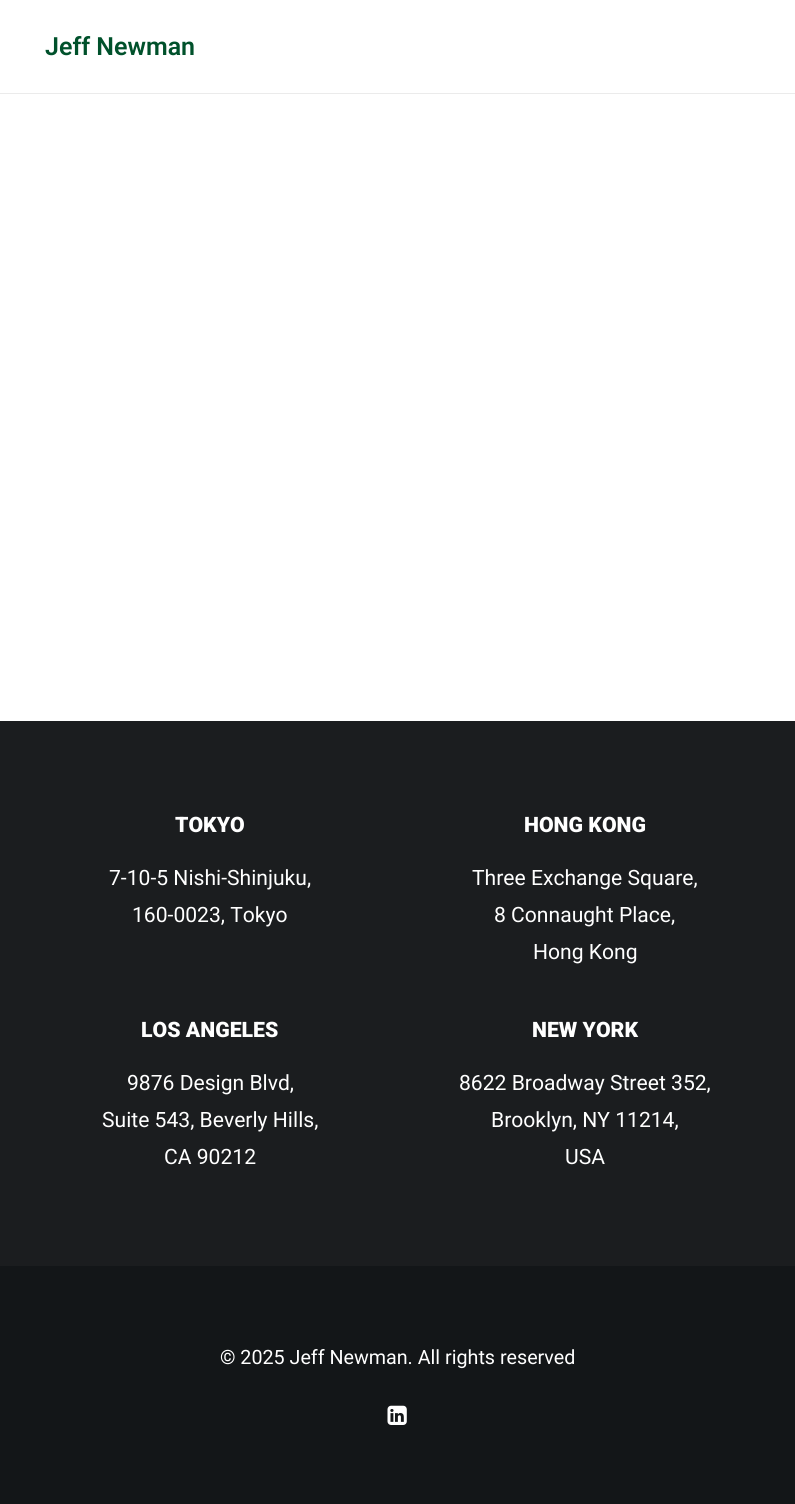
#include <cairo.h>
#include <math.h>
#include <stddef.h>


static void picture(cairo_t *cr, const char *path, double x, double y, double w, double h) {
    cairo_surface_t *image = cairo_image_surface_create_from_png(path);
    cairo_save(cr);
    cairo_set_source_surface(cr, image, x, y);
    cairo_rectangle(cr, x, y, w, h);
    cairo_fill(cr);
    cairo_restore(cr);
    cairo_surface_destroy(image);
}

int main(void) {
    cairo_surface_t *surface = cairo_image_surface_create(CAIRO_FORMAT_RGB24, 795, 1504);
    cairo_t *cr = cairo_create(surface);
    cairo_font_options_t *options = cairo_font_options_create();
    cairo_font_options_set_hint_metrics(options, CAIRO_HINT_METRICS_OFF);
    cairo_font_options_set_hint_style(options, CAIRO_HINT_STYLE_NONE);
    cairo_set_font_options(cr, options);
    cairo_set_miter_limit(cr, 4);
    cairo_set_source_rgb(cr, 1, 1, 1);
    cairo_paint(cr);
    cairo_set_source_rgb(cr, 0.918, 0.918, 0.918);
    cairo_rectangle(cr, 0, 93, 795, 1);
    cairo_fill(cr);
    cairo_select_font_face(cr, "Roboto SemiBold", CAIRO_FONT_SLANT_NORMAL, CAIRO_FONT_WEIGHT_NORMAL);
    cairo_set_font_size(cr, 25);
    cairo_set_source_rgb(cr, 0, 0.318, 0.169);
    cairo_move_to(cr, 45, 55);
    cairo_show_text(cr, "Jeff Newman");
    cairo_set_source_rgb(cr, 0.106, 0.114, 0.122);
    cairo_rectangle(cr, 0, 721, 795, 545);
    cairo_fill(cr);
    cairo_select_font_face(cr, "Roboto Black", CAIRO_FONT_SLANT_NORMAL, CAIRO_FONT_WEIGHT_NORMAL);
    cairo_set_font_size(cr, 21.25);
    cairo_set_source_rgb(cr, 1, 1, 1);
    cairo_move_to(cr, 175, 832);
    cairo_show_text(cr, "TOKYO");
    cairo_select_font_face(cr, "Roboto", CAIRO_FONT_SLANT_NORMAL, CAIRO_FONT_WEIGHT_NORMAL);
    cairo_set_font_size(cr, 21.1);
    cairo_move_to(cr, 109, 885);
    cairo_show_text(cr, "7-10-5 Nishi-Shinjuku,");
    cairo_move_to(cr, 132, 922);
    cairo_show_text(cr, "160-0023, Tokyo");
    cairo_select_font_face(cr, "Roboto Black", CAIRO_FONT_SLANT_NORMAL, CAIRO_FONT_WEIGHT_NORMAL);
    cairo_set_font_size(cr, 21.25);
    cairo_move_to(cr, 524, 832);
    cairo_show_text(cr, "HONG KONG");
    cairo_select_font_face(cr, "Roboto", CAIRO_FONT_SLANT_NORMAL, CAIRO_FONT_WEIGHT_NORMAL);
    cairo_set_font_size(cr, 21.1);
    cairo_move_to(cr, 472, 885);
    cairo_show_text(cr, "Three Exchange Square,");
    cairo_move_to(cr, 494, 922);
    cairo_show_text(cr, "8 Connaught Place,");
    cairo_move_to(cr, 533, 959);
    cairo_show_text(cr, "Hong Kong");
    cairo_select_font_face(cr, "Roboto Black", CAIRO_FONT_SLANT_NORMAL, CAIRO_FONT_WEIGHT_NORMAL);
    cairo_set_font_size(cr, 21.25);
    cairo_move_to(cr, 141, 1037);
    cairo_show_text(cr, "LOS ANGELES");
    cairo_select_font_face(cr, "Roboto", CAIRO_FONT_SLANT_NORMAL, CAIRO_FONT_WEIGHT_NORMAL);
    cairo_set_font_size(cr, 21.1);
    cairo_move_to(cr, 127, 1090);
    cairo_show_text(cr, "9876 Design Blvd,");
    cairo_move_to(cr, 102, 1127);
    cairo_show_text(cr, "Suite 543, Beverly Hills,");
    cairo_move_to(cr, 164, 1164);
    cairo_show_text(cr, "CA 90212");
    cairo_select_font_face(cr, "Roboto Black", CAIRO_FONT_SLANT_NORMAL, CAIRO_FONT_WEIGHT_NORMAL);
    cairo_set_font_size(cr, 21.25);
    cairo_move_to(cr, 532, 1037);
    cairo_show_text(cr, "NEW YORK");
    cairo_select_font_face(cr, "Roboto", CAIRO_FONT_SLANT_NORMAL, CAIRO_FONT_WEIGHT_NORMAL);
    cairo_set_font_size(cr, 21.1);
    cairo_move_to(cr, 459, 1090);
    cairo_show_text(cr, "8622 Broadway Street 352,");
    cairo_move_to(cr, 491, 1127);
    cairo_show_text(cr, "Brooklyn, NY 11214,");
    cairo_move_to(cr, 565, 1164);
    cairo_show_text(cr, "USA");
    cairo_set_source_rgb(cr, 0.078, 0.086, 0.094);
    cairo_rectangle(cr, 0, 1266, 795, 238);
    cairo_fill(cr);
    cairo_set_font_size(cr, 19.7);
    cairo_set_source_rgb(cr, 1, 1, 1);
    cairo_move_to(cr, 220, 1364);
    cairo_show_text(cr, "© 2025 Jeff Newman. All rights reserved");
    picture(cr, "img1.png", 387, 1405, 20, 20);
    cairo_surface_write_to_png(surface, "page.png");
    cairo_font_options_destroy(options);
    cairo_destroy(cr);
    cairo_surface_destroy(surface);
    return 0;
}
